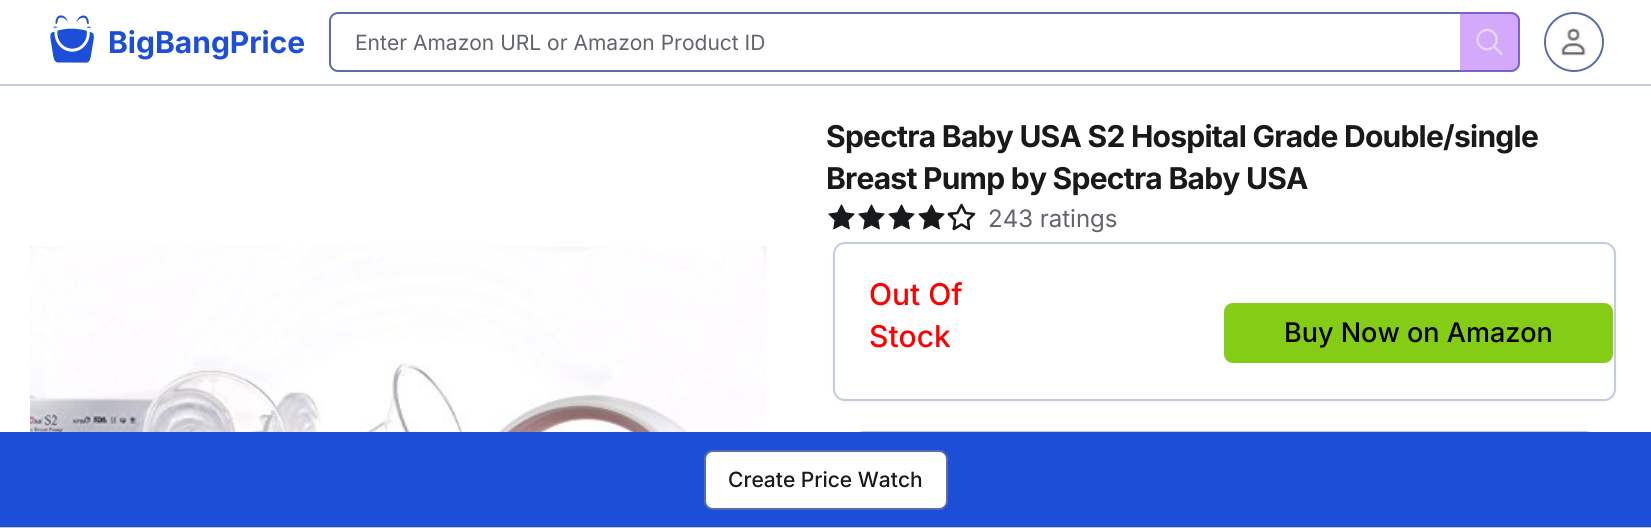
#include <cairo.h>
#include <math.h>
#include <stddef.h>


static void spaced_text(cairo_t *cr, double x, double y, const char *s, double letter, double word) {
    cairo_move_to(cr, x, y);
    while (*s) {
        char ch[5] = {0};
        int n = 0;
        do ch[n++] = *s++; while ((*s & 0xC0) == 0x80);
        cairo_show_text(cr, ch);
        cairo_rel_move_to(cr, letter + word * (*ch == ' '), 0);
    }
}

static void round_rect(cairo_t *cr, double x, double y, double w, double h, double r) {
    cairo_new_sub_path(cr);
    cairo_arc(cr, x + w - r, y + h - r, r, 0, M_PI / 2);
    cairo_arc(cr, x + r, y + h - r, r, M_PI / 2, M_PI);
    cairo_arc(cr, x + r, y + r, r, M_PI, 1.5 * M_PI);
    cairo_arc(cr, x + w - r, y + r, r, 1.5 * M_PI, 2 * M_PI);
    cairo_close_path(cr);
}

static void shadow(cairo_t *cr, double x, double y, double w, double h, double r, double blur, double alpha) {
    cairo_push_group_with_content(cr, CAIRO_CONTENT_ALPHA);
    cairo_set_operator(cr, CAIRO_OPERATOR_SOURCE);
    for (int i = 15; i >= -15 && fmin(w, h) + blur * i / 3 > 0; i -= 2) {
        double e = blur * i / 6;
        cairo_set_source_rgba(cr, 0, 0, 0, alpha * erfc((i - 1) / 8.5) / 2);
        round_rect(cr, x - e, y - e, w + 2 * e, h + 2 * e, fmax(0, fmin(r + e + blur * .6, fmin(w, h) / 2 + e)));
        cairo_fill(cr);
    }
    cairo_pattern_t *soft = cairo_pop_group(cr);
    cairo_mask(cr, soft);
    cairo_pattern_destroy(soft);
}

static void picture(cairo_t *cr, const char *path, double x, double y, double w, double h) {
    cairo_surface_t *image = cairo_image_surface_create_from_png(path);
    cairo_save(cr);
    cairo_set_source_surface(cr, image, x, y);
    cairo_rectangle(cr, x, y, w, h);
    cairo_fill(cr);
    cairo_restore(cr);
    cairo_surface_destroy(image);
}

int main(void) {
    cairo_surface_t *surface = cairo_image_surface_create(CAIRO_FORMAT_RGB24, 1651, 528);
    cairo_t *cr = cairo_create(surface);
    cairo_font_options_t *options = cairo_font_options_create();
    cairo_font_options_set_hint_metrics(options, CAIRO_HINT_METRICS_OFF);
    cairo_font_options_set_hint_style(options, CAIRO_HINT_STYLE_NONE);
    cairo_set_font_options(cr, options);
    cairo_set_miter_limit(cr, 4);
    cairo_set_source_rgb(cr, 1, 1, 1);
    cairo_paint(cr);
    cairo_set_source_rgb(cr, 0.765, 0.796, 0.875);
    cairo_rectangle(cr, 0, 84, 1651, 2);
    cairo_fill(cr);
    picture(cr, "img1.png", 50, 15, 44, 48);
    cairo_select_font_face(cr, "Inter", CAIRO_FONT_SLANT_NORMAL, CAIRO_FONT_WEIGHT_BOLD);
    cairo_set_font_size(cr, 30);
    cairo_set_source_rgb(cr, 0.114, 0.306, 0.847);
    cairo_move_to(cr, 108, 53);
    cairo_show_text(cr, "BigBangPrice");
    round_rect(cr, 330, 13, 1189, 58, 8);
    cairo_set_source_rgb(cr, 0.349, 0.427, 0.651);
    cairo_stroke(cr);
    cairo_select_font_face(cr, "Inter", CAIRO_FONT_SLANT_NORMAL, CAIRO_FONT_WEIGHT_NORMAL);
    cairo_set_font_size(cr, 21);
    cairo_set_source_rgb(cr, 0.38, 0.392, 0.42);
    cairo_move_to(cr, 355, 50);
    cairo_show_text(cr, "Enter Amazon URL or Amazon Product ID");
    cairo_set_source_rgba(cr, 0.659, 0.333, 0.969, 0.5);
    cairo_new_path(cr);
    cairo_move_to(cr, 1460, 12);
    cairo_line_to(cr, 1511, 12);
    cairo_curve_to(cr, 1516, 12, 1520, 16, 1520, 21);
    cairo_line_to(cr, 1520, 63);
    cairo_curve_to(cr, 1520, 68, 1516, 72, 1511, 72);
    cairo_line_to(cr, 1460, 72);
    cairo_close_path(cr);
    cairo_fill(cr);
    picture(cr, "img2.png", 1476, 28, 27, 28);
    cairo_arc(cr, 1574, 42, 29, 0, 2 * M_PI);
    cairo_set_source_rgb(cr, 0.349, 0.427, 0.651);
    cairo_stroke(cr);
    picture(cr, "img3.png", 1546, 23, 41, 38);
    picture(cr, "img4.png", 30, 246, 737, 186);
    cairo_select_font_face(cr, "Inter", CAIRO_FONT_SLANT_NORMAL, CAIRO_FONT_WEIGHT_BOLD);
    cairo_set_font_size(cr, 30);
    cairo_set_source_rgb(cr, 0.094, 0.098, 0.106);
    spaced_text(cr, 826, 147, "Spectra Baby USA S2 Hospital Grade Double/single", -0.75, 0);
    spaced_text(cr, 826, 189, "Breast Pump by Spectra Baby USA", -0.75, 0);
    picture(cr, "img5.png", 828, 204, 27, 26);
    picture(cr, "img5.png", 858, 204, 27, 26);
    picture(cr, "img5.png", 888, 204, 27, 26);
    picture(cr, "img5.png", 918, 204, 27, 26);
    cairo_new_path(cr);
    cairo_move_to(cr, 961.5, 205);
    cairo_line_to(cr, 965.5, 213);
    cairo_line_to(cr, 974, 214);
    cairo_line_to(cr, 968, 220);
    cairo_line_to(cr, 969, 229);
    cairo_line_to(cr, 961.5, 224.5);
    cairo_line_to(cr, 954, 229);
    cairo_line_to(cr, 955, 220);
    cairo_line_to(cr, 949, 214);
    cairo_line_to(cr, 957.5, 213);
    cairo_close_path(cr);
    cairo_set_line_width(cr, 2.5);
    cairo_set_line_cap(cr, CAIRO_LINE_CAP_ROUND);
    cairo_set_line_join(cr, CAIRO_LINE_JOIN_ROUND);
    cairo_stroke(cr);
    picture(cr, "img6.png", 947, 212, 6, 18);
    cairo_select_font_face(cr, "Inter", CAIRO_FONT_SLANT_NORMAL, CAIRO_FONT_WEIGHT_NORMAL);
    cairo_set_font_size(cr, 24);
    cairo_set_source_rgb(cr, 0.38, 0.392, 0.42);
    cairo_move_to(cr, 988, 227);
    cairo_show_text(cr, "243 ratings");
    cairo_set_source_rgb(cr, 0, 0, 0);
    shadow(cr, 833, 243, 783, 159, 12, 1.5, 0.05);
    cairo_set_source_rgb(cr, 1, 1, 1);
    round_rect(cr, 834, 243, 781, 157, 11);
    cairo_fill_preserve(cr);
    cairo_set_source_rgb(cr, 0.765, 0.796, 0.875);
    cairo_set_line_width(cr, 2);
    cairo_set_line_cap(cr, CAIRO_LINE_CAP_BUTT);
    cairo_set_line_join(cr, CAIRO_LINE_JOIN_MITER);
    cairo_stroke(cr);
    cairo_select_font_face(cr, "Inter Medium", CAIRO_FONT_SLANT_NORMAL, CAIRO_FONT_WEIGHT_NORMAL);
    cairo_set_font_size(cr, 30);
    cairo_set_source_rgb(cr, 1, 0, 0);
    cairo_move_to(cr, 869, 305);
    cairo_show_text(cr, "Out Of");
    cairo_move_to(cr, 869, 347);
    cairo_show_text(cr, "Stock");
    cairo_set_source_rgb(cr, 0.518, 0.8, 0.086);
    round_rect(cr, 1224, 303, 389, 60, 9);
    cairo_fill(cr);
    cairo_set_font_size(cr, 27);
    cairo_set_source_rgb(cr, 0, 0, 0);
    cairo_move_to(cr, 1284, 342);
    cairo_show_text(cr, "Buy Now on Amazon");
    round_rect(cr, 858, 432, 733, 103, 5);
    cairo_set_source_rgb(cr, 0.765, 0.796, 0.875);
    cairo_stroke(cr);
    cairo_set_source_rgb(cr, 0.114, 0.306, 0.847);
    cairo_rectangle(cr, 0, 432, 1651, 95);
    cairo_fill(cr);
    cairo_set_source_rgb(cr, 0.765, 0.796, 0.875);
    cairo_rectangle(cr, 0, 527, 1651, 1);
    cairo_fill(cr);
    cairo_set_source_rgb(cr, 1, 1, 1);
    round_rect(cr, 705, 451, 242, 58, 8);
    cairo_fill_preserve(cr);
    cairo_set_source_rgb(cr, 0.349, 0.427, 0.651);
    cairo_stroke(cr);
    cairo_set_font_size(cr, 21);
    cairo_set_source_rgb(cr, 0.094, 0.098, 0.106);
    cairo_move_to(cr, 728, 487);
    cairo_show_text(cr, "Create Price Watch");
    cairo_surface_write_to_png(surface, "page.png");
    cairo_font_options_destroy(options);
    cairo_destroy(cr);
    cairo_surface_destroy(surface);
    return 0;
}
